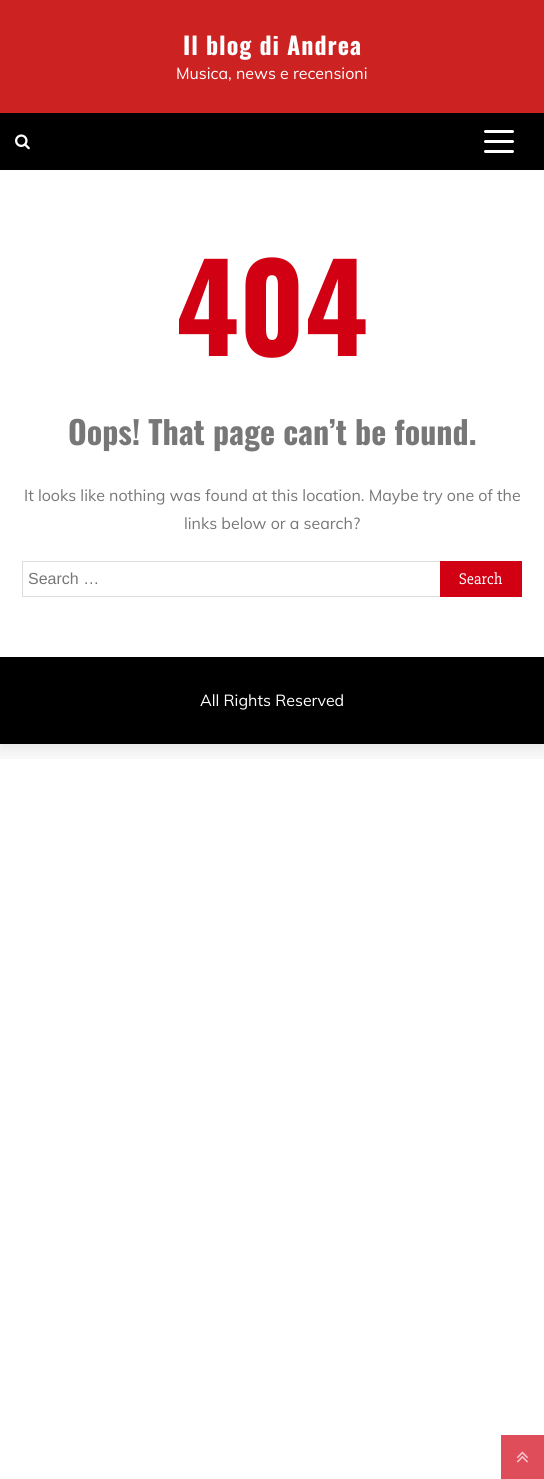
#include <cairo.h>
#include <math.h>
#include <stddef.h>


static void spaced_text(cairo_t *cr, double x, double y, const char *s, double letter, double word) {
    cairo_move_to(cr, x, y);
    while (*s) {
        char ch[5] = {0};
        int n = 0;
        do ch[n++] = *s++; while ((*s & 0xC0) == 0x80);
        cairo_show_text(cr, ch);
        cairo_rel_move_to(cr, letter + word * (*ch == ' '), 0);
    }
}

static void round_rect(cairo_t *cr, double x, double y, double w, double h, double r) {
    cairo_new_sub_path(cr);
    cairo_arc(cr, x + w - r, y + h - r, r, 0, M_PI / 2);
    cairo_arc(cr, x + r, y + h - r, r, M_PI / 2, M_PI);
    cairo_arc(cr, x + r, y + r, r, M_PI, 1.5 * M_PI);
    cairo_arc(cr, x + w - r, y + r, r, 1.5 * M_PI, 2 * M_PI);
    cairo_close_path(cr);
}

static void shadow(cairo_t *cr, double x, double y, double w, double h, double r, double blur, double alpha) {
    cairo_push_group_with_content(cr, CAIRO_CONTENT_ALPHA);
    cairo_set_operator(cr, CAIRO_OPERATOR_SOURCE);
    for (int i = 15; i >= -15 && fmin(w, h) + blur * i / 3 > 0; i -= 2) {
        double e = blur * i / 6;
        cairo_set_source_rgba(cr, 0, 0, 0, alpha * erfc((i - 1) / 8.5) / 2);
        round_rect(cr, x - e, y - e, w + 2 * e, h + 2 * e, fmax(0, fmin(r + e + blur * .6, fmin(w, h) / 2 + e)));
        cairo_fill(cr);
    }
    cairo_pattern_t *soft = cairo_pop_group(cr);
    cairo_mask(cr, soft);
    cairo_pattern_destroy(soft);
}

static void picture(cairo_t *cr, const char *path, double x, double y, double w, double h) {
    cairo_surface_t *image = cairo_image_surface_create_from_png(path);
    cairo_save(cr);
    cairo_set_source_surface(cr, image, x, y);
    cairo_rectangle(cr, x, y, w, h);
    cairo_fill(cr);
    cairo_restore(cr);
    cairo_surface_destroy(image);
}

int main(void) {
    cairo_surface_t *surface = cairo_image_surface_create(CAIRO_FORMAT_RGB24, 544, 1479);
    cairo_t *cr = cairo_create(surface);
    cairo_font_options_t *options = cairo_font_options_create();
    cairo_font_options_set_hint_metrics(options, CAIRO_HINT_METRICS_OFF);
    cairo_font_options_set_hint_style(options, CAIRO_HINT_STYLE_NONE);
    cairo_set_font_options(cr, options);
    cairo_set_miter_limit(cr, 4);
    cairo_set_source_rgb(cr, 1, 1, 1);
    cairo_paint(cr);
    cairo_save(cr);
    cairo_rectangle(cr, 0, 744, 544, 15);
    cairo_clip(cr);
    cairo_set_source_rgb(cr, 0, 0, 0);
    shadow(cr, -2, 3, 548, 748, 0, 9.5, 0.1);
    cairo_restore(cr);
    cairo_set_source_rgb(cr, 0.8, 0.133, 0.133);
    cairo_rectangle(cr, 0, 0, 544, 113);
    cairo_fill(cr);
    cairo_select_font_face(cr, "Oswald", CAIRO_FONT_SLANT_NORMAL, CAIRO_FONT_WEIGHT_BOLD);
    cairo_set_font_size(cr, 24);
    cairo_set_source_rgb(cr, 1, 1, 1);
    spaced_text(cr, 183, 55, "Il blog di Andrea", 1, 0);
    cairo_select_font_face(cr, "Muli", CAIRO_FONT_SLANT_NORMAL, CAIRO_FONT_WEIGHT_NORMAL);
    cairo_set_font_size(cr, 16);
    cairo_move_to(cr, 176, 79);
    cairo_show_text(cr, "Musica, news e recensioni");
    cairo_set_source_rgb(cr, 0, 0, 0);
    cairo_rectangle(cr, 0, 113, 544, 57);
    cairo_fill(cr);
    picture(cr, "img1.png", 15, 134, 15, 16);
    cairo_set_source_rgb(cr, 1, 1, 1);
    round_rect(cr, 484, 130, 30, 3, 1.5);
    cairo_fill(cr);
    round_rect(cr, 484, 140, 30, 3, 1.5);
    cairo_fill(cr);
    round_rect(cr, 484, 150, 30, 3, 1.5);
    cairo_fill(cr);
    cairo_select_font_face(cr, "Oswald", CAIRO_FONT_SLANT_NORMAL, CAIRO_FONT_WEIGHT_BOLD);
    cairo_set_font_size(cr, 120);
    cairo_set_source_rgb(cr, 0.82, 0, 0.078);
    cairo_move_to(cr, 176, 356);
    cairo_show_text(cr, "404");
    cairo_set_font_size(cr, 32);
    cairo_set_source_rgb(cr, 0.467, 0.467, 0.467);
    cairo_move_to(cr, 68, 445);
    cairo_show_text(cr, "Oops! That page can’t be found.");
    cairo_select_font_face(cr, "Muli", CAIRO_FONT_SLANT_NORMAL, CAIRO_FONT_WEIGHT_NORMAL);
    cairo_set_font_size(cr, 16);
    cairo_move_to(cr, 24, 501);
    cairo_show_text(cr, "It looks like nothing was found at this location. Maybe try one of the");
    cairo_move_to(cr, 184, 529);
    cairo_show_text(cr, "links below or a search?");
    cairo_rectangle(cr, 22.5, 561.5, 499, 35);
    cairo_set_source_rgb(cr, 0.867, 0.867, 0.867);
    cairo_set_line_width(cr, 1);
    cairo_stroke(cr);
    cairo_select_font_face(cr, "Liberation Sans", CAIRO_FONT_SLANT_NORMAL, CAIRO_FONT_WEIGHT_NORMAL);
    cairo_set_source_rgb(cr, 0.467, 0.467, 0.467);
    cairo_move_to(cr, 28, 584);
    cairo_show_text(cr, "Search …");
    cairo_set_source_rgb(cr, 0.82, 0, 0.078);
    cairo_rectangle(cr, 440, 561, 82, 36);
    cairo_fill(cr);
    cairo_select_font_face(cr, "Slabo 27px", CAIRO_FONT_SLANT_NORMAL, CAIRO_FONT_WEIGHT_NORMAL);
    cairo_set_source_rgb(cr, 1, 1, 1);
    cairo_move_to(cr, 459, 584);
    cairo_show_text(cr, "Search");
    cairo_set_source_rgb(cr, 0, 0, 0);
    cairo_rectangle(cr, 0, 657, 544, 87);
    cairo_fill(cr);
    cairo_select_font_face(cr, "Muli", CAIRO_FONT_SLANT_NORMAL, CAIRO_FONT_WEIGHT_NORMAL);
    cairo_set_source_rgb(cr, 1, 1, 1);
    cairo_move_to(cr, 200, 706);
    cairo_show_text(cr, "All Rights Reserved");
    cairo_set_source_rgb(cr, 0.875, 0.302, 0.357);
    cairo_rectangle(cr, 501, 1435, 43, 44);
    cairo_fill(cr);
    picture(cr, "img2.png", 516, 1451, 12, 12);
    cairo_surface_write_to_png(surface, "page.png");
    cairo_font_options_destroy(options);
    cairo_destroy(cr);
    cairo_surface_destroy(surface);
    return 0;
}
